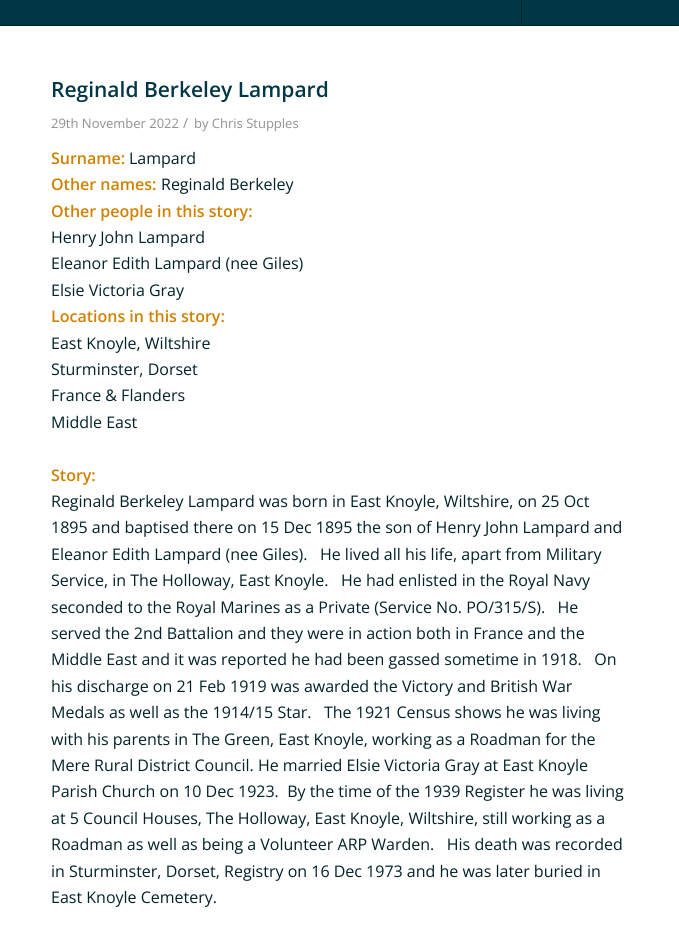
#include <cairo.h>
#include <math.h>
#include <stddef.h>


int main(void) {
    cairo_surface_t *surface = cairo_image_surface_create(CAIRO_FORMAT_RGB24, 679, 929);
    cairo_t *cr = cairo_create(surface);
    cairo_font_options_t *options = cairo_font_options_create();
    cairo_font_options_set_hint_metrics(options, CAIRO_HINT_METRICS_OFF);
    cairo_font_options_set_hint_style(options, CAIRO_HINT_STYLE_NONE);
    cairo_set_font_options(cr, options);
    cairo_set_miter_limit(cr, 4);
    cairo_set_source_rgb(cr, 1, 1, 1);
    cairo_paint(cr);
    cairo_set_source_rgb(cr, 0.004, 0.216, 0.267);
    cairo_rectangle(cr, 0, 0, 679, 25);
    cairo_fill(cr);
    cairo_set_source_rgb(cr, 0, 0.137, 0.169);
    cairo_rectangle(cr, 0, 25, 679, 1);
    cairo_fill(cr);
    cairo_rectangle(cr, 521, 0, 1, 25);
    cairo_fill(cr);
    cairo_select_font_face(cr, "Open Sans SemiBold", CAIRO_FONT_SLANT_NORMAL, CAIRO_FONT_WEIGHT_NORMAL);
    cairo_set_font_size(cr, 21);
    cairo_set_source_rgb(cr, 0.004, 0.216, 0.267);
    cairo_move_to(cr, 51, 97);
    cairo_show_text(cr, "Reginald Berkeley Lampard");
    cairo_select_font_face(cr, "Open Sans", CAIRO_FONT_SLANT_NORMAL, CAIRO_FONT_WEIGHT_NORMAL);
    cairo_set_font_size(cr, 13);
    cairo_set_source_rgb(cr, 0.569, 0.569, 0.569);
    cairo_move_to(cr, 51, 128);
    cairo_show_text(cr, "29th November 2022");
    cairo_set_font_size(cr, 14);
    cairo_move_to(cr, 183, 128);
    cairo_show_text(cr, "/");
    cairo_set_font_size(cr, 13);
    cairo_move_to(cr, 194, 128);
    cairo_show_text(cr, "by Chris Stupples");
    cairo_select_font_face(cr, "Open Sans SemiBold", CAIRO_FONT_SLANT_NORMAL, CAIRO_FONT_WEIGHT_NORMAL);
    cairo_set_font_size(cr, 16);
    cairo_set_source_rgb(cr, 0.82, 0.506, 0);
    cairo_move_to(cr, 51, 164);
    cairo_show_text(cr, "Surname:");
    cairo_select_font_face(cr, "Open Sans", CAIRO_FONT_SLANT_NORMAL, CAIRO_FONT_WEIGHT_NORMAL);
    cairo_set_source_rgb(cr, 0.004, 0.133, 0.165);
    cairo_move_to(cr, 129, 164);
    cairo_show_text(cr, "Lampard");
    cairo_select_font_face(cr, "Open Sans SemiBold", CAIRO_FONT_SLANT_NORMAL, CAIRO_FONT_WEIGHT_NORMAL);
    cairo_set_source_rgb(cr, 0.82, 0.506, 0);
    cairo_move_to(cr, 51, 190);
    cairo_show_text(cr, "Other names:");
    cairo_select_font_face(cr, "Open Sans", CAIRO_FONT_SLANT_NORMAL, CAIRO_FONT_WEIGHT_NORMAL);
    cairo_set_source_rgb(cr, 0.004, 0.133, 0.165);
    cairo_move_to(cr, 161, 190);
    cairo_show_text(cr, "Reginald Berkeley");
    cairo_select_font_face(cr, "Open Sans SemiBold", CAIRO_FONT_SLANT_NORMAL, CAIRO_FONT_WEIGHT_NORMAL);
    cairo_set_source_rgb(cr, 0.82, 0.506, 0);
    cairo_move_to(cr, 51, 217);
    cairo_show_text(cr, "Other people in this story:");
    cairo_select_font_face(cr, "Open Sans", CAIRO_FONT_SLANT_NORMAL, CAIRO_FONT_WEIGHT_NORMAL);
    cairo_set_source_rgb(cr, 0.004, 0.133, 0.165);
    cairo_move_to(cr, 51, 243);
    cairo_show_text(cr, "Henry John Lampard");
    cairo_move_to(cr, 51, 269);
    cairo_show_text(cr, "Eleanor Edith Lampard (nee Giles)");
    cairo_move_to(cr, 51, 296);
    cairo_show_text(cr, "Elsie Victoria Gray");
    cairo_select_font_face(cr, "Open Sans SemiBold", CAIRO_FONT_SLANT_NORMAL, CAIRO_FONT_WEIGHT_NORMAL);
    cairo_set_source_rgb(cr, 0.82, 0.506, 0);
    cairo_move_to(cr, 51, 322);
    cairo_show_text(cr, "Locations in this story:");
    cairo_select_font_face(cr, "Open Sans", CAIRO_FONT_SLANT_NORMAL, CAIRO_FONT_WEIGHT_NORMAL);
    cairo_set_source_rgb(cr, 0.004, 0.133, 0.165);
    cairo_move_to(cr, 51, 349);
    cairo_show_text(cr, "East Knoyle, Wiltshire");
    cairo_move_to(cr, 51, 375);
    cairo_show_text(cr, "Sturminster, Dorset");
    cairo_move_to(cr, 51, 401);
    cairo_show_text(cr, "France & Flanders");
    cairo_move_to(cr, 51, 428);
    cairo_show_text(cr, "Middle East");
    cairo_select_font_face(cr, "Open Sans SemiBold", CAIRO_FONT_SLANT_NORMAL, CAIRO_FONT_WEIGHT_NORMAL);
    cairo_set_source_rgb(cr, 0.82, 0.506, 0);
    cairo_move_to(cr, 51, 481);
    cairo_show_text(cr, "Story:");
    cairo_select_font_face(cr, "Open Sans", CAIRO_FONT_SLANT_NORMAL, CAIRO_FONT_WEIGHT_NORMAL);
    cairo_set_source_rgb(cr, 0.004, 0.133, 0.165);
    cairo_move_to(cr, 51, 507);
    cairo_show_text(cr, "Reginald Berkeley Lampard was born in East Knoyle, Wiltshire, on 25 Oct");
    cairo_move_to(cr, 51, 533);
    cairo_show_text(cr, "1895 and baptised there on 15 Dec 1895 the son of Henry John Lampard and");
    cairo_move_to(cr, 51, 560);
    cairo_show_text(cr, "Eleanor Edith Lampard (nee Giles).   He lived all his life, apart from Military");
    cairo_move_to(cr, 51, 586);
    cairo_show_text(cr, "Service, in The Holloway, East Knoyle.   He had enlisted in the Royal Navy");
    cairo_move_to(cr, 51, 613);
    cairo_show_text(cr, "seconded to the Royal Marines as a Private (Service No. PO/315/S).   He");
    cairo_move_to(cr, 51, 639);
    cairo_show_text(cr, "served the 2nd Battalion and they were in action both in France and the");
    cairo_move_to(cr, 51, 665);
    cairo_show_text(cr, "Middle East and it was reported he had been gassed sometime in 1918.   On");
    cairo_move_to(cr, 51, 692);
    cairo_show_text(cr, "his discharge on 21 Feb 1919 was awarded the Victory and British War");
    cairo_move_to(cr, 51, 718);
    cairo_show_text(cr, "Medals as well as the 1914/15 Star.   The 1921 Census shows he was living");
    cairo_move_to(cr, 51, 745);
    cairo_show_text(cr, "with his parents in The Green, East Knoyle, working as a Roadman for the");
    cairo_move_to(cr, 51, 771);
    cairo_show_text(cr, "Mere Rural District Council. He married Elsie Victoria Gray at East Knoyle");
    cairo_move_to(cr, 51, 797);
    cairo_show_text(cr, "Parish Church on 10 Dec 1923.  By the time of the 1939 Register he was living");
    cairo_move_to(cr, 51, 824);
    cairo_show_text(cr, "at 5 Council Houses, The Holloway, East Knoyle, Wiltshire, still working as a");
    cairo_move_to(cr, 51, 850);
    cairo_show_text(cr, "Roadman as well as being a Volunteer ARP Warden.   His death was recorded");
    cairo_move_to(cr, 51, 877);
    cairo_show_text(cr, "in Sturminster, Dorset, Registry on 16 Dec 1973 and he was later buried in");
    cairo_move_to(cr, 51, 903);
    cairo_show_text(cr, "East Knoyle Cemetery.");
    cairo_surface_write_to_png(surface, "page.png");
    cairo_font_options_destroy(options);
    cairo_destroy(cr);
    cairo_surface_destroy(surface);
    return 0;
}
